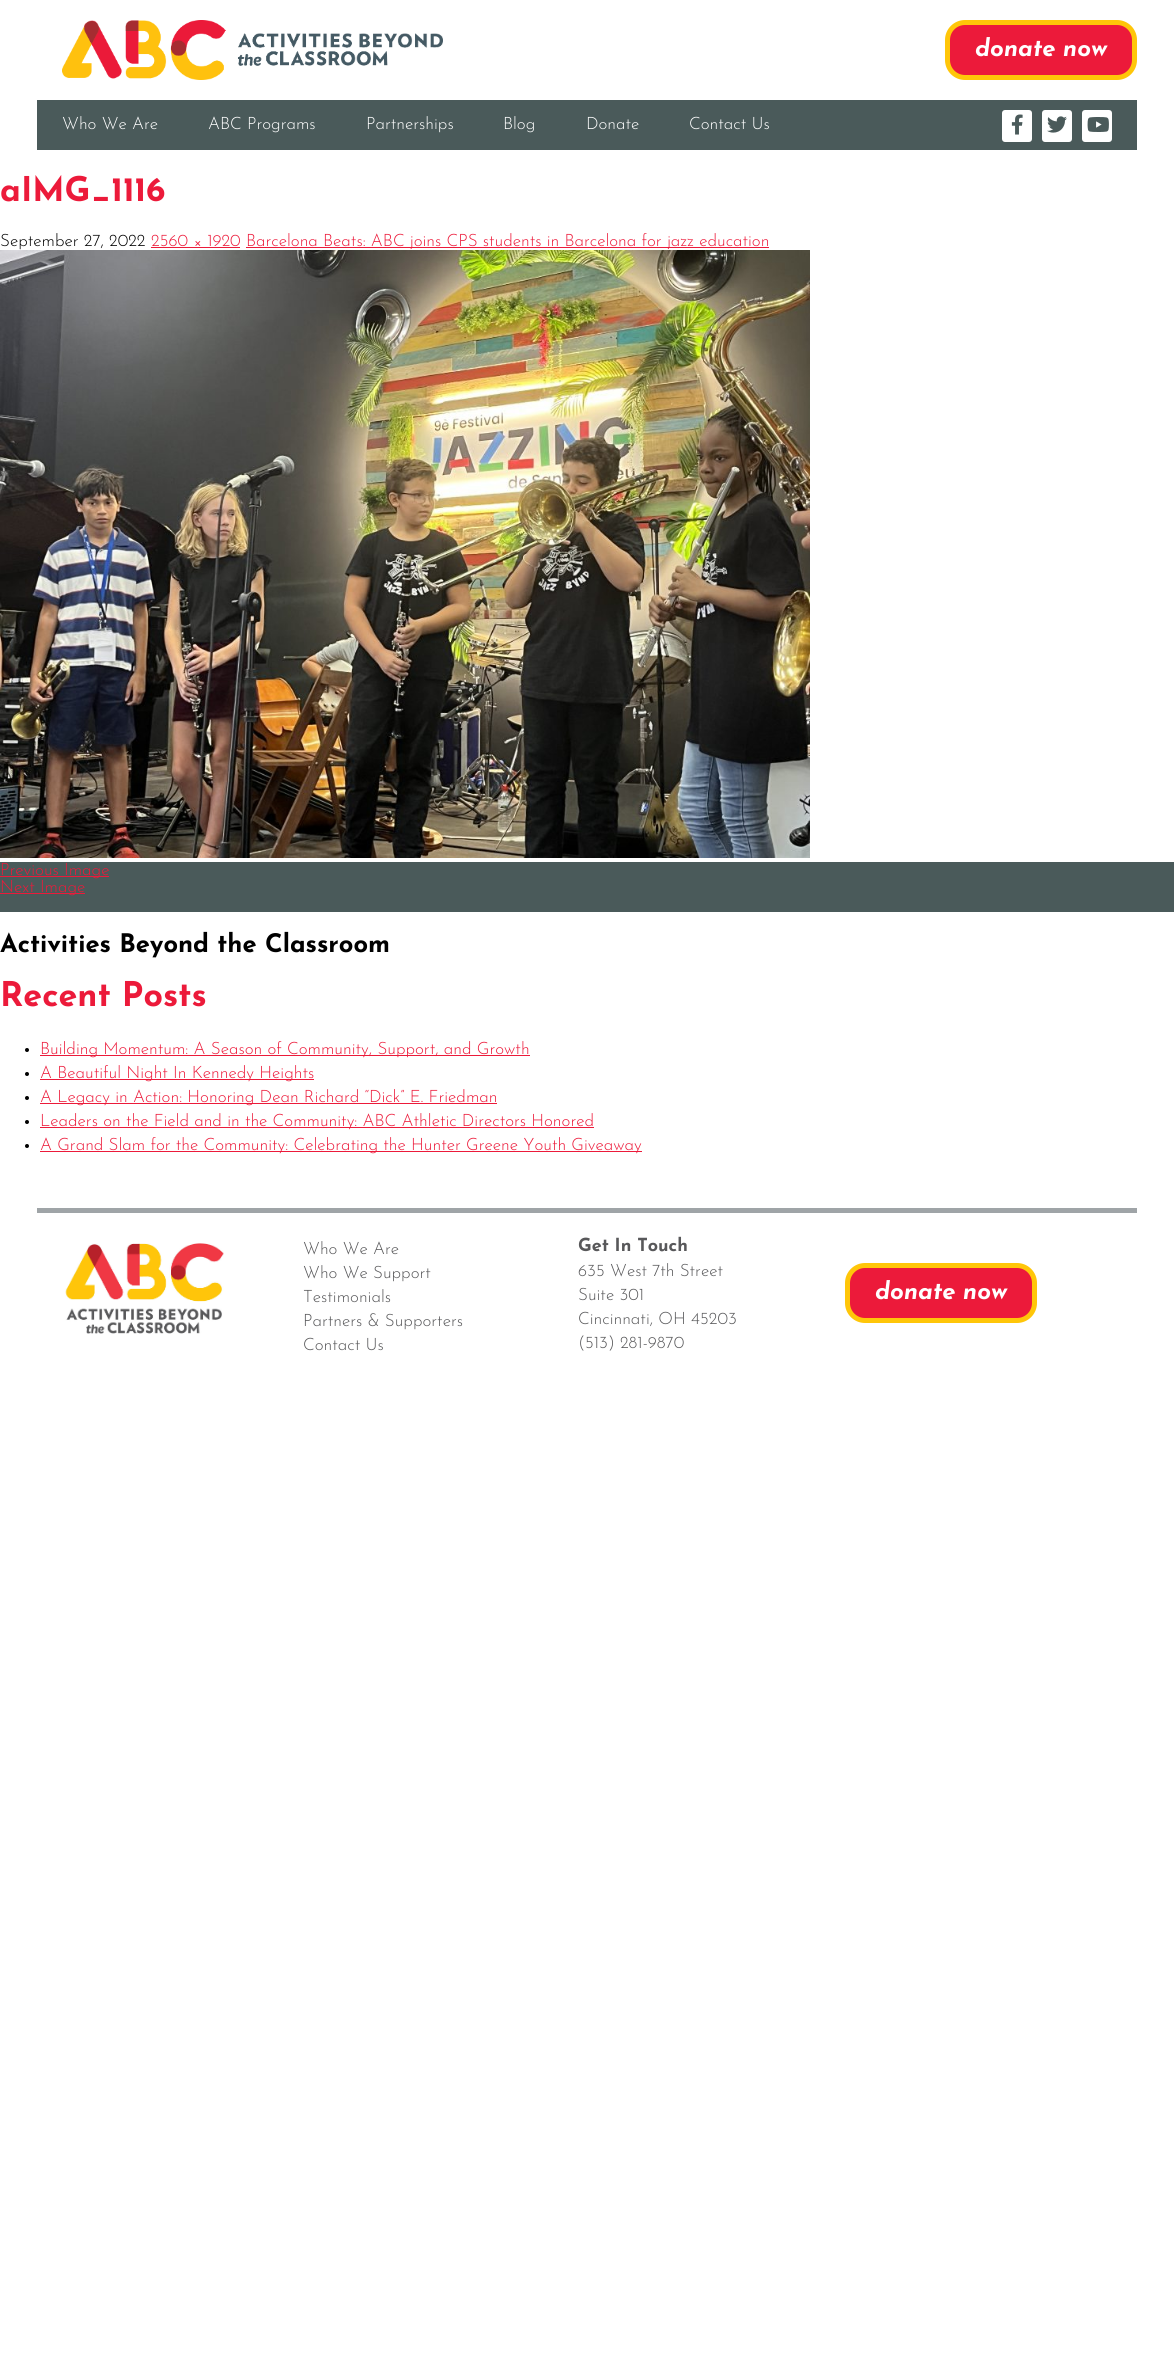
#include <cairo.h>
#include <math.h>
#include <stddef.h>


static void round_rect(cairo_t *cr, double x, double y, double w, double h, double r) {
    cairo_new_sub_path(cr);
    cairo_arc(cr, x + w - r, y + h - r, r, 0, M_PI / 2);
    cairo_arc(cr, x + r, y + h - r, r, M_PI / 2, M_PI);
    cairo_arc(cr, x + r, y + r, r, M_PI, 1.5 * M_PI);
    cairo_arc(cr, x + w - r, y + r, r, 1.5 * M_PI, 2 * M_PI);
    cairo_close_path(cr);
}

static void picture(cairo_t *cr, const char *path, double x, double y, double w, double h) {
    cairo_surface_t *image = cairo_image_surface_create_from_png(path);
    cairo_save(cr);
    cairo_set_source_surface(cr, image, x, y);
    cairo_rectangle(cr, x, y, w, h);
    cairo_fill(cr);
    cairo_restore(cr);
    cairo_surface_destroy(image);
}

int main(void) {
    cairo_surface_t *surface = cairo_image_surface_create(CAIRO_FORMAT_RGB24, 1174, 2377);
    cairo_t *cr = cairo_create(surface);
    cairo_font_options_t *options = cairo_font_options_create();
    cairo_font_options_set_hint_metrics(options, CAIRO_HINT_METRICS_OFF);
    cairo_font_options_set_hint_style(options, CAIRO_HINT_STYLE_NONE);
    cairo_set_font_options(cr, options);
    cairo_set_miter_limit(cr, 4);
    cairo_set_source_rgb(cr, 1, 1, 1);
    cairo_paint(cr);
    picture(cr, "img1.png", 62, 20, 381, 60);
    cairo_set_source_rgb(cr, 0.922, 0.102, 0.227);
    round_rect(cr, 947.5, 22.5, 187, 55, 17.5);
    cairo_fill_preserve(cr);
    cairo_set_source_rgb(cr, 1, 0.776, 0.039);
    cairo_set_line_width(cr, 5);
    cairo_stroke(cr);
    cairo_select_font_face(cr, "Josefin Sans", CAIRO_FONT_SLANT_ITALIC, CAIRO_FONT_WEIGHT_BOLD);
    cairo_set_font_size(cr, 24);
    cairo_set_source_rgb(cr, 1, 1, 1);
    cairo_move_to(cr, 975, 56);
    cairo_show_text(cr, "donate now");
    cairo_set_source_rgb(cr, 0.29, 0.353, 0.353);
    cairo_rectangle(cr, 37, 100, 1100, 50);
    cairo_fill(cr);
    cairo_select_font_face(cr, "Josefin Sans Light", CAIRO_FONT_SLANT_NORMAL, CAIRO_FONT_WEIGHT_NORMAL);
    cairo_set_font_size(cr, 17);
    cairo_set_source_rgb(cr, 1, 1, 1);
    cairo_move_to(cr, 62, 129);
    cairo_show_text(cr, "Who We Are");
    cairo_move_to(cr, 208, 129);
    cairo_show_text(cr, "ABC Programs");
    cairo_move_to(cr, 366, 129);
    cairo_show_text(cr, "Partnerships");
    cairo_move_to(cr, 503, 129);
    cairo_show_text(cr, "Blog");
    cairo_move_to(cr, 586, 129);
    cairo_show_text(cr, "Donate");
    cairo_move_to(cr, 689, 129);
    cairo_show_text(cr, "Contact Us");
    round_rect(cr, 1002, 110, 30, 32, 3);
    cairo_fill(cr);
    picture(cr, "img2.png", 1011, 114, 12, 21);
    round_rect(cr, 1042, 110, 30, 32, 3);
    cairo_fill(cr);
    picture(cr, "img3.png", 1047, 116, 20, 17);
    round_rect(cr, 1082, 110, 30, 32, 3);
    cairo_fill(cr);
    picture(cr, "img4.png", 1087, 117, 22, 15);
    cairo_select_font_face(cr, "Josefin Sans", CAIRO_FONT_SLANT_NORMAL, CAIRO_FONT_WEIGHT_BOLD);
    cairo_set_font_size(cr, 34);
    cairo_set_source_rgb(cr, 0.922, 0.102, 0.227);
    cairo_move_to(cr, 0, 201);
    cairo_show_text(cr, "aIMG_1116");
    cairo_select_font_face(cr, "Josefin Sans Light", CAIRO_FONT_SLANT_NORMAL, CAIRO_FONT_WEIGHT_NORMAL);
    cairo_set_font_size(cr, 17);
    cairo_set_source_rgb(cr, 0, 0, 0);
    cairo_move_to(cr, 0, 246);
    cairo_show_text(cr, "September 27, 2022");
    cairo_set_source_rgb(cr, 0.922, 0.102, 0.227);
    cairo_move_to(cr, 151, 246);
    cairo_show_text(cr, "2560 × 1920");
    cairo_rectangle(cr, 151, 247, 89, 1);
    cairo_fill(cr);
    cairo_rectangle(cr, 246, 247, 523, 1);
    cairo_fill(cr);
    cairo_move_to(cr, 246, 246);
    cairo_show_text(cr, "Barcelona Beats: ABC joins CPS students in Barcelona for jazz education");
    picture(cr, "img5.png", 0, 250, 810, 608);
    cairo_set_source_rgb(cr, 0.29, 0.353, 0.353);
    cairo_rectangle(cr, 0, 862, 1174, 50);
    cairo_fill(cr);
    cairo_set_source_rgb(cr, 0.922, 0.102, 0.227);
    cairo_rectangle(cr, 0, 876, 109, 1);
    cairo_fill(cr);
    cairo_move_to(cr, 0, 875);
    cairo_show_text(cr, "Previous Image");
    cairo_rectangle(cr, 0, 893, 85, 1);
    cairo_fill(cr);
    cairo_move_to(cr, 0, 892);
    cairo_show_text(cr, "Next Image");
    cairo_select_font_face(cr, "Josefin Sans", CAIRO_FONT_SLANT_NORMAL, CAIRO_FONT_WEIGHT_BOLD);
    cairo_set_font_size(cr, 25.5);
    cairo_set_source_rgb(cr, 0, 0, 0);
    cairo_move_to(cr, 0, 952);
    cairo_show_text(cr, "Activities Beyond the Classroom");
    cairo_set_font_size(cr, 34);
    cairo_set_source_rgb(cr, 0.922, 0.102, 0.227);
    cairo_move_to(cr, 0, 1006);
    cairo_show_text(cr, "Recent Posts");
    cairo_set_source_rgb(cr, 0, 0, 0);
    cairo_new_path(cr);
    cairo_arc(cr, 27, 1050, 2, 0, 2 * M_PI);
    cairo_fill(cr);
    cairo_set_source_rgb(cr, 0.922, 0.102, 0.227);
    cairo_rectangle(cr, 40, 1055, 490, 1);
    cairo_fill(cr);
    cairo_select_font_face(cr, "Josefin Sans Light", CAIRO_FONT_SLANT_NORMAL, CAIRO_FONT_WEIGHT_NORMAL);
    cairo_set_font_size(cr, 17);
    cairo_move_to(cr, 40, 1054);
    cairo_show_text(cr, "Building Momentum: A Season of Community, Support, and Growth");
    cairo_set_source_rgb(cr, 0, 0, 0);
    cairo_new_path(cr);
    cairo_arc(cr, 27, 1074, 2, 0, 2 * M_PI);
    cairo_fill(cr);
    cairo_set_source_rgb(cr, 0.922, 0.102, 0.227);
    cairo_rectangle(cr, 40, 1079, 274, 1);
    cairo_fill(cr);
    cairo_move_to(cr, 40, 1078);
    cairo_show_text(cr, "A Beautiful Night In Kennedy Heights");
    cairo_set_source_rgb(cr, 0, 0, 0);
    cairo_new_path(cr);
    cairo_arc(cr, 27, 1098, 2, 0, 2 * M_PI);
    cairo_fill(cr);
    cairo_set_source_rgb(cr, 0.922, 0.102, 0.227);
    cairo_rectangle(cr, 40, 1103, 457, 1);
    cairo_fill(cr);
    cairo_move_to(cr, 40, 1102);
    cairo_show_text(cr, "A Legacy in Action: Honoring Dean Richard “Dick” E. Friedman");
    cairo_set_source_rgb(cr, 0, 0, 0);
    cairo_new_path(cr);
    cairo_arc(cr, 27, 1122, 2, 0, 2 * M_PI);
    cairo_fill(cr);
    cairo_set_source_rgb(cr, 0.922, 0.102, 0.227);
    cairo_rectangle(cr, 40, 1127, 554, 1);
    cairo_fill(cr);
    cairo_move_to(cr, 40, 1126);
    cairo_show_text(cr, "Leaders on the Field and in the Community: ABC Athletic Directors Honored");
    cairo_set_source_rgb(cr, 0, 0, 0);
    cairo_new_path(cr);
    cairo_arc(cr, 27, 1146, 2, 0, 2 * M_PI);
    cairo_fill(cr);
    cairo_set_source_rgb(cr, 0.922, 0.102, 0.227);
    cairo_rectangle(cr, 40, 1151, 602, 1);
    cairo_fill(cr);
    cairo_move_to(cr, 40, 1150);
    cairo_show_text(cr, "A Grand Slam for the Community: Celebrating the Hunter Greene Youth Giveaway");
    cairo_set_source_rgb(cr, 0.624, 0.643, 0.655);
    cairo_rectangle(cr, 37, 1208, 1100, 5);
    cairo_fill(cr);
    picture(cr, "img6.png", 65, 1243, 159, 91);
    cairo_set_source_rgb(cr, 0.345, 0.345, 0.353);
    cairo_move_to(cr, 303, 1254);
    cairo_show_text(cr, "Who We Are");
    cairo_move_to(cr, 303, 1278);
    cairo_show_text(cr, "Who We Support");
    cairo_move_to(cr, 303, 1302);
    cairo_show_text(cr, "Testimonials");
    cairo_move_to(cr, 303, 1326);
    cairo_show_text(cr, "Partners & Supporters");
    cairo_move_to(cr, 303, 1350);
    cairo_show_text(cr, "Contact Us");
    cairo_select_font_face(cr, "Josefin Sans", CAIRO_FONT_SLANT_NORMAL, CAIRO_FONT_WEIGHT_BOLD);
    cairo_set_font_size(cr, 18);
    cairo_move_to(cr, 578, 1251);
    cairo_show_text(cr, "Get In Touch");
    cairo_select_font_face(cr, "Josefin Sans Light", CAIRO_FONT_SLANT_NORMAL, CAIRO_FONT_WEIGHT_NORMAL);
    cairo_set_font_size(cr, 17);
    cairo_move_to(cr, 578, 1276);
    cairo_show_text(cr, "635 West 7th Street");
    cairo_move_to(cr, 578, 1300);
    cairo_show_text(cr, "Suite 301");
    cairo_move_to(cr, 578, 1324);
    cairo_show_text(cr, "Cincinnati, OH 45203");
    cairo_move_to(cr, 578, 1348);
    cairo_show_text(cr, "(513) 281-9870");
    cairo_set_source_rgb(cr, 0.922, 0.102, 0.227);
    round_rect(cr, 847.5, 1265.5, 187, 55, 17.5);
    cairo_fill_preserve(cr);
    cairo_set_source_rgb(cr, 1, 0.776, 0.039);
    cairo_stroke(cr);
    cairo_select_font_face(cr, "Josefin Sans", CAIRO_FONT_SLANT_ITALIC, CAIRO_FONT_WEIGHT_BOLD);
    cairo_set_font_size(cr, 24);
    cairo_set_source_rgb(cr, 1, 1, 1);
    cairo_move_to(cr, 875, 1299);
    cairo_show_text(cr, "donate now");
    cairo_surface_write_to_png(surface, "page.png");
    cairo_font_options_destroy(options);
    cairo_destroy(cr);
    cairo_surface_destroy(surface);
    return 0;
}
